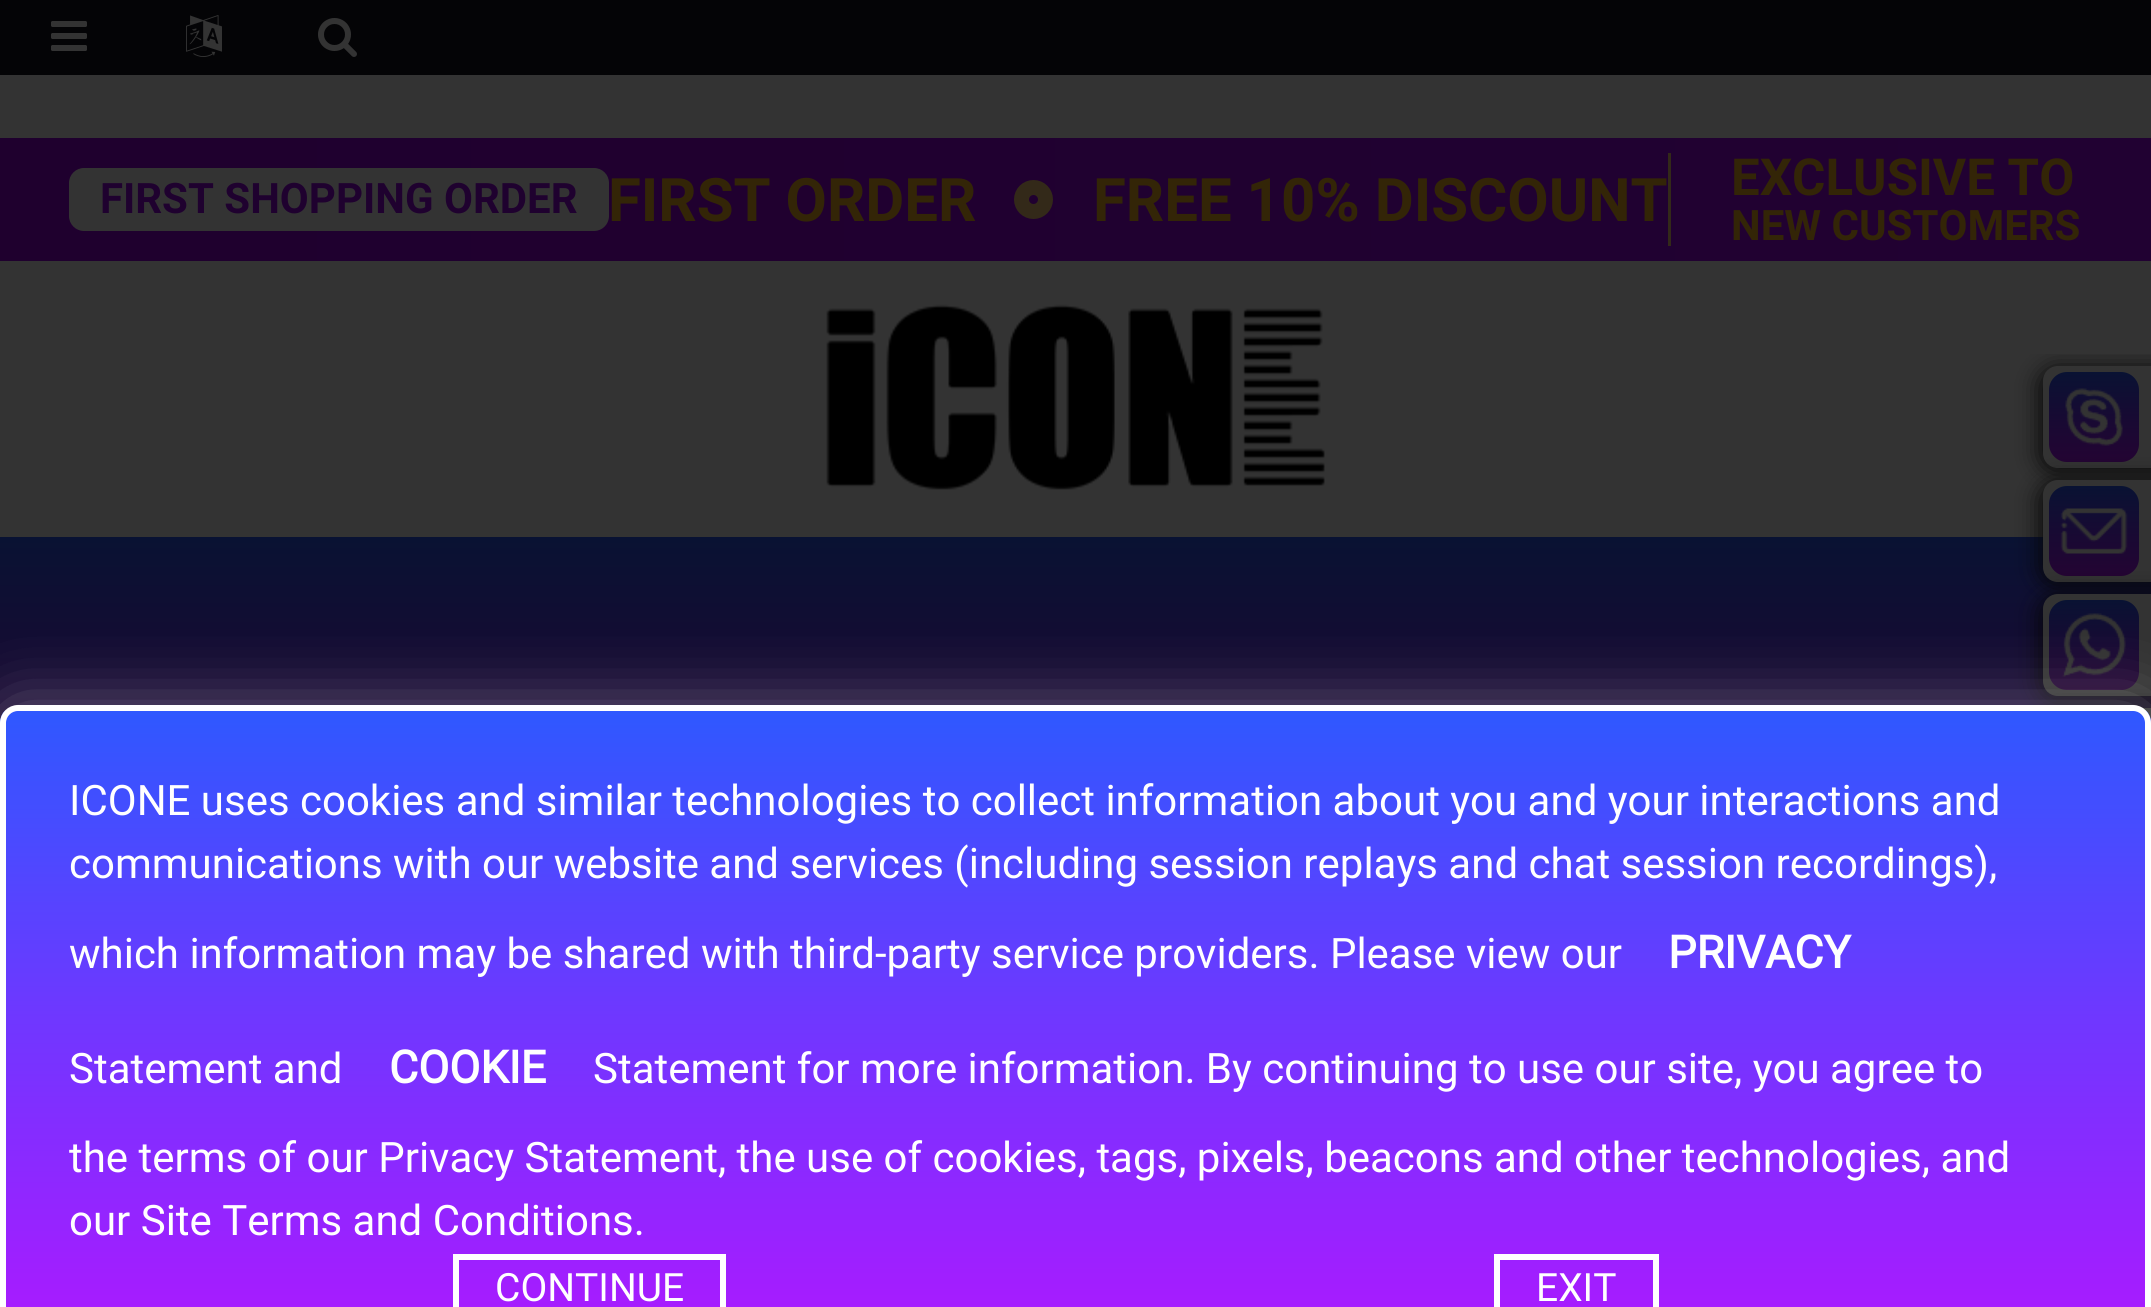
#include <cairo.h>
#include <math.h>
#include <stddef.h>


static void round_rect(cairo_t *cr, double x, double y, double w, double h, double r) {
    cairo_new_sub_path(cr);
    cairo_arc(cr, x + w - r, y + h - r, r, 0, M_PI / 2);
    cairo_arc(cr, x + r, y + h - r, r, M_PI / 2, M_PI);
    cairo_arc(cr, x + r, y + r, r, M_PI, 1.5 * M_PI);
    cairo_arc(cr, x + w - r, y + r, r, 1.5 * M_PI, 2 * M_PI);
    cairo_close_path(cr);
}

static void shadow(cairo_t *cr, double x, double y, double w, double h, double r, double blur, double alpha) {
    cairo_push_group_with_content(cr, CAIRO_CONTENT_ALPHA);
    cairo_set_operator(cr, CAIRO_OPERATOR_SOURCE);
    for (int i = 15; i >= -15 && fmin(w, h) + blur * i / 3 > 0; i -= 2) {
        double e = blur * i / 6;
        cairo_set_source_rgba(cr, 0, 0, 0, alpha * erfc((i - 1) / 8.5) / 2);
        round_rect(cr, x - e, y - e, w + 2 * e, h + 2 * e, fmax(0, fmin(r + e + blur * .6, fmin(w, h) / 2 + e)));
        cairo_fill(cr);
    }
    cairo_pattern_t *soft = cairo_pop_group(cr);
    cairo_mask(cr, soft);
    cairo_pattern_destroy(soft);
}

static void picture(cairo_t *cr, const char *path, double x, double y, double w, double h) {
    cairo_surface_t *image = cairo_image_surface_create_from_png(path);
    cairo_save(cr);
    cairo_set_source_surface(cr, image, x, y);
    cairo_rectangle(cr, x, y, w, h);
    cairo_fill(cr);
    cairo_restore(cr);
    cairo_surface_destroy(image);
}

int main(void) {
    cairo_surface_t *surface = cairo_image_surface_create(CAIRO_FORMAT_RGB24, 2151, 1307);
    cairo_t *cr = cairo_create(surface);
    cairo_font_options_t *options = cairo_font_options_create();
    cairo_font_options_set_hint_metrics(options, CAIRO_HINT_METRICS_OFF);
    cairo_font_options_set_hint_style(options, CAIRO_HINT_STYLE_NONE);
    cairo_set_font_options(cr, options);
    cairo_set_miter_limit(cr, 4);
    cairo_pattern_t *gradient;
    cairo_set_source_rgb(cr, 0.2, 0.2, 0.2);
    cairo_paint(cr);
    cairo_set_source_rgb(cr, 0.016, 0.016, 0.027);
    cairo_rectangle(cr, 0, 0, 2151, 75);
    cairo_fill(cr);
    picture(cr, "img1.png", 51, 21, 36, 30);
    picture(cr, "img2.png", 186, 15, 36, 42);
    picture(cr, "img3.png", 318, 18, 39, 39);
    gradient = cairo_pattern_create_linear(0, 200, 2151, 199);
    cairo_pattern_add_color_stop_rgba(gradient, 0, 0.122, 0, 0.18, 1);
    cairo_pattern_add_color_stop_rgba(gradient, 1, 0.129, 0.004, 0.196, 1);
    cairo_set_source(cr, gradient);
    cairo_pattern_destroy(gradient);
    cairo_rectangle(cr, 0, 138, 2151, 123);
    cairo_fill(cr);
    cairo_set_source_rgb(cr, 0.2, 0.2, 0.2);
    round_rect(cr, 69, 168, 540, 63, 15);
    cairo_fill(cr);
    cairo_select_font_face(cr, "Roboto", CAIRO_FONT_SLANT_NORMAL, CAIRO_FONT_WEIGHT_BOLD);
    cairo_set_font_size(cr, 42);
    cairo_set_source_rgb(cr, 0.122, 0.004, 0.184);
    cairo_move_to(cr, 100, 213);
    cairo_show_text(cr, "FIRST SHOPPING ORDER");
    cairo_set_font_size(cr, 60);
    cairo_set_source_rgb(cr, 0.2, 0.145, 0.031);
    cairo_move_to(cr, 608, 221);
    cairo_show_text(cr, "FIRST ORDER");
    cairo_new_path(cr);
    cairo_arc(cr, 1033.5, 199.5, 12, 0, 2 * M_PI);
    cairo_set_source_rgb(cr, 0.2, 0.161, 0.098);
    cairo_set_line_width(cr, 15);
    cairo_stroke(cr);
    cairo_set_source_rgb(cr, 0.2, 0.145, 0.031);
    cairo_move_to(cr, 1093, 221);
    cairo_show_text(cr, "FREE 10% DISCOUNT");
    cairo_set_source_rgb(cr, 0.2, 0.161, 0.098);
    cairo_rectangle(cr, 1668, 153, 3, 93);
    cairo_fill(cr);
    cairo_set_font_size(cr, 51);
    cairo_set_source_rgb(cr, 0.2, 0.145, 0.031);
    cairo_move_to(cr, 1731, 195);
    cairo_show_text(cr, "EXCLUSIVE TO");
    cairo_set_font_size(cr, 42);
    cairo_move_to(cr, 1731, 240);
    cairo_show_text(cr, "NEW CUSTOMERS");
    picture(cr, "img4.png", 826, 304, 499, 186);
    gradient = cairo_pattern_create_linear(1076, 537, 1076, 837);
    cairo_pattern_add_color_stop_rgba(gradient, 0, 0.035, 0.071, 0.2, 1);
    cairo_pattern_add_color_stop_rgba(gradient, 0.5, 0.09, 0.039, 0.2, 1);
    cairo_pattern_add_color_stop_rgba(gradient, 1, 0.141, 0.016, 0.2, 1);
    cairo_set_source(cr, gradient);
    cairo_pattern_destroy(gradient);
    cairo_rectangle(cr, 0, 537, 2151, 186);
    cairo_fill(cr);
    cairo_save(cr);
    cairo_new_path(cr);
    cairo_move_to(cr, 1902, 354);
    cairo_line_to(cr, 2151, 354);
    cairo_line_to(cr, 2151, 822);
    cairo_line_to(cr, 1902, 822);
    cairo_curve_to(cr, 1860.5, 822, 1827, 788.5, 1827, 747);
    cairo_line_to(cr, 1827, 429);
    cairo_curve_to(cr, 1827, 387.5, 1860.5, 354, 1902, 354);
    cairo_close_path(cr);
    cairo_clip(cr);
    cairo_set_source_rgb(cr, 0.027, 0.027, 0.027);
    shadow(cr, 2040, 369, 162, 102, 15, 12, 1);
    cairo_restore(cr);
    cairo_set_source_rgb(cr, 0.2, 0.2, 0.2);
    cairo_new_path(cr);
    cairo_move_to(cr, 2058, 366);
    cairo_line_to(cr, 2151, 366);
    cairo_line_to(cr, 2151, 468);
    cairo_line_to(cr, 2058, 468);
    cairo_curve_to(cr, 2049.5, 468, 2043, 461.5, 2043, 453);
    cairo_line_to(cr, 2043, 381);
    cairo_curve_to(cr, 2043, 372.5, 2049.5, 366, 2058, 366);
    cairo_close_path(cr);
    cairo_fill(cr);
    gradient = cairo_pattern_create_linear(2094, 372, 2094, 462);
    cairo_pattern_add_color_stop_rgba(gradient, 0, 0.035, 0.071, 0.2, 1);
    cairo_pattern_add_color_stop_rgba(gradient, 0.5, 0.09, 0.039, 0.2, 1);
    cairo_pattern_add_color_stop_rgba(gradient, 1, 0.141, 0.016, 0.2, 1);
    cairo_set_source(cr, gradient);
    cairo_pattern_destroy(gradient);
    round_rect(cr, 2049, 372, 90, 90, 18);
    cairo_fill(cr);
    cairo_set_source_rgb(cr, 0.027, 0.027, 0.027);
    shadow(cr, 2040, 483, 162, 102, 15, 12, 1);
    cairo_set_source_rgb(cr, 0.2, 0.2, 0.2);
    cairo_new_path(cr);
    cairo_move_to(cr, 2058, 480);
    cairo_line_to(cr, 2151, 480);
    cairo_line_to(cr, 2151, 582);
    cairo_line_to(cr, 2058, 582);
    cairo_curve_to(cr, 2049.5, 582, 2043, 575.5, 2043, 567);
    cairo_line_to(cr, 2043, 495);
    cairo_curve_to(cr, 2043, 486.5, 2049.5, 480, 2058, 480);
    cairo_close_path(cr);
    cairo_fill(cr);
    gradient = cairo_pattern_create_linear(2094, 486, 2094, 576);
    cairo_pattern_add_color_stop_rgba(gradient, 0, 0.035, 0.071, 0.2, 1);
    cairo_pattern_add_color_stop_rgba(gradient, 0.5, 0.09, 0.039, 0.2, 1);
    cairo_pattern_add_color_stop_rgba(gradient, 1, 0.141, 0.016, 0.2, 1);
    cairo_set_source(cr, gradient);
    cairo_pattern_destroy(gradient);
    round_rect(cr, 2049, 486, 90, 90, 18);
    cairo_fill(cr);
    cairo_set_source_rgb(cr, 0.027, 0.027, 0.027);
    shadow(cr, 2040, 597, 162, 102, 15, 12, 1);
    cairo_set_source_rgb(cr, 0.2, 0.2, 0.2);
    cairo_new_path(cr);
    cairo_move_to(cr, 2058, 594);
    cairo_line_to(cr, 2151, 594);
    cairo_line_to(cr, 2151, 696);
    cairo_line_to(cr, 2058, 696);
    cairo_curve_to(cr, 2049.5, 696, 2043, 689.5, 2043, 681);
    cairo_line_to(cr, 2043, 609);
    cairo_curve_to(cr, 2043, 600.5, 2049.5, 594, 2058, 594);
    cairo_close_path(cr);
    cairo_fill(cr);
    gradient = cairo_pattern_create_linear(2094, 600, 2094, 690);
    cairo_pattern_add_color_stop_rgba(gradient, 0, 0.035, 0.071, 0.2, 1);
    cairo_pattern_add_color_stop_rgba(gradient, 0.5, 0.09, 0.039, 0.2, 1);
    cairo_pattern_add_color_stop_rgba(gradient, 1, 0.141, 0.016, 0.2, 1);
    cairo_set_source(cr, gradient);
    cairo_pattern_destroy(gradient);
    round_rect(cr, 2049, 600, 90, 90, 18);
    cairo_fill(cr);
    picture(cr, "img7.png", 2062, 613, 64, 64);
    cairo_set_source_rgb(cr, 0.027, 0.027, 0.027);
    shadow(cr, 2040, 711, 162, 102, 15, 12, 1);
    cairo_set_source_rgb(cr, 0.2, 0.2, 0.2);
    cairo_rectangle(cr, 2143, 708, 8, 15);
    cairo_fill(cr);
    cairo_set_source_rgb(cr, 1, 1, 1);
    shadow(cr, 0, 705, 2151, 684, 18, 31.5, 0.35);
    cairo_save(cr);
    round_rect(cr, 0, 705, 2151, 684, 18);
    cairo_clip(cr);
    gradient = cairo_pattern_create_linear(1076, 711, 1076, 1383);
    cairo_pattern_add_color_stop_rgba(gradient, 0, 0.184, 0.345, 1, 1);
    cairo_pattern_add_color_stop_rgba(gradient, 0.5, 0.459, 0.204, 1, 1);
    cairo_pattern_add_color_stop_rgba(gradient, 1, 0.706, 0.082, 1, 1);
    cairo_set_source(cr, gradient);
    cairo_pattern_destroy(gradient);
    cairo_rectangle(cr, 0, 711, 2151, 596);
    cairo_fill(cr);
    cairo_restore(cr);
    round_rect(cr, 3, 708, 2145, 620, 15);
    cairo_set_source_rgb(cr, 1, 1, 1);
    cairo_set_line_width(cr, 6);
    cairo_stroke(cr);
    cairo_select_font_face(cr, "Roboto", CAIRO_FONT_SLANT_NORMAL, CAIRO_FONT_WEIGHT_NORMAL);
    cairo_move_to(cr, 69, 815);
    cairo_show_text(cr, "ICONE uses cookies and similar technologies to collect information about you and your interactions and");
    cairo_move_to(cr, 69, 878);
    cairo_show_text(cr, "communications with our website and services (including session replays and chat session recordings),");
    cairo_move_to(cr, 69, 968);
    cairo_show_text(cr, "which information may be shared with third-party service providers. Please view our");
    cairo_select_font_face(cr, "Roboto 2", CAIRO_FONT_SLANT_NORMAL, CAIRO_FONT_WEIGHT_BOLD);
    cairo_set_font_size(cr, 45);
    cairo_move_to(cr, 1668, 968);
    cairo_show_text(cr, "PRIVACY");
    cairo_select_font_face(cr, "Roboto", CAIRO_FONT_SLANT_NORMAL, CAIRO_FONT_WEIGHT_NORMAL);
    cairo_set_font_size(cr, 42);
    cairo_move_to(cr, 69, 1083);
    cairo_show_text(cr, "Statement and");
    cairo_select_font_face(cr, "Roboto 2", CAIRO_FONT_SLANT_NORMAL, CAIRO_FONT_WEIGHT_BOLD);
    cairo_set_font_size(cr, 45);
    cairo_move_to(cr, 389, 1083);
    cairo_show_text(cr, "COOKIE");
    cairo_select_font_face(cr, "Roboto", CAIRO_FONT_SLANT_NORMAL, CAIRO_FONT_WEIGHT_NORMAL);
    cairo_set_font_size(cr, 42);
    cairo_move_to(cr, 593, 1083);
    cairo_show_text(cr, "Statement for more information. By continuing to use our site, you agree to");
    cairo_move_to(cr, 69, 1172);
    cairo_show_text(cr, "the terms of our Privacy Statement, the use of cookies, tags, pixels, beacons and other technologies, and");
    cairo_move_to(cr, 69, 1235);
    cairo_show_text(cr, "our Site Terms and Conditions.");
    cairo_rectangle(cr, 456, 1257, 267, 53);
    cairo_stroke(cr);
    cairo_set_font_size(cr, 39);
    cairo_move_to(cr, 495, 1301);
    cairo_show_text(cr, "CONTINUE");
    cairo_rectangle(cr, 1497, 1257, 159, 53);
    cairo_stroke(cr);
    cairo_move_to(cr, 1536, 1301);
    cairo_show_text(cr, "EXIT");
    picture(cr, "img5.png", 2065, 388, 58, 58);
    picture(cr, "img6.png", 2060, 508, 68, 46);
    cairo_surface_write_to_png(surface, "page.png");
    cairo_font_options_destroy(options);
    cairo_destroy(cr);
    cairo_surface_destroy(surface);
    return 0;
}
